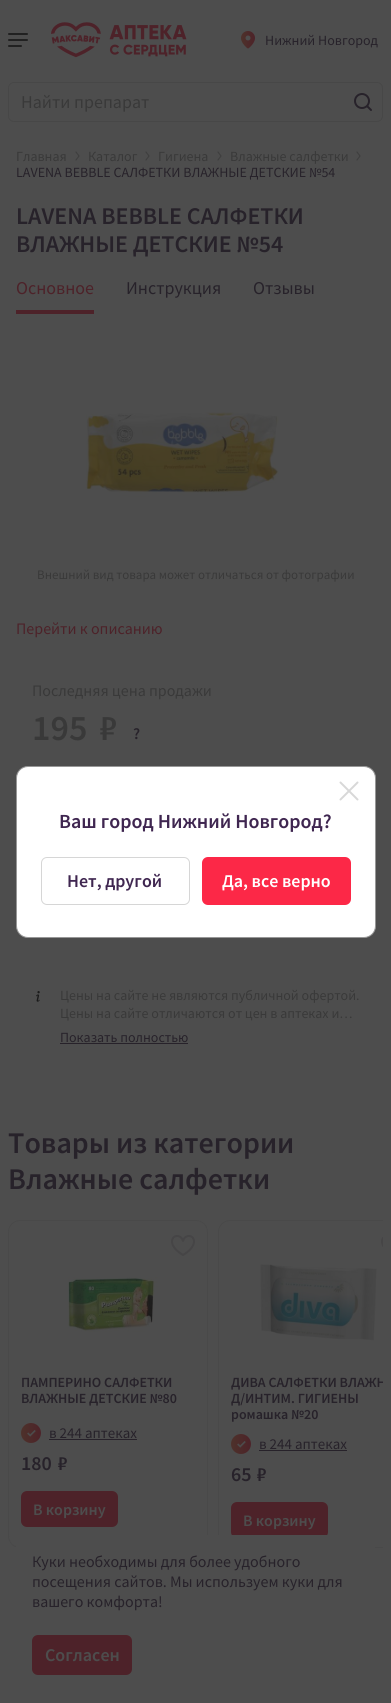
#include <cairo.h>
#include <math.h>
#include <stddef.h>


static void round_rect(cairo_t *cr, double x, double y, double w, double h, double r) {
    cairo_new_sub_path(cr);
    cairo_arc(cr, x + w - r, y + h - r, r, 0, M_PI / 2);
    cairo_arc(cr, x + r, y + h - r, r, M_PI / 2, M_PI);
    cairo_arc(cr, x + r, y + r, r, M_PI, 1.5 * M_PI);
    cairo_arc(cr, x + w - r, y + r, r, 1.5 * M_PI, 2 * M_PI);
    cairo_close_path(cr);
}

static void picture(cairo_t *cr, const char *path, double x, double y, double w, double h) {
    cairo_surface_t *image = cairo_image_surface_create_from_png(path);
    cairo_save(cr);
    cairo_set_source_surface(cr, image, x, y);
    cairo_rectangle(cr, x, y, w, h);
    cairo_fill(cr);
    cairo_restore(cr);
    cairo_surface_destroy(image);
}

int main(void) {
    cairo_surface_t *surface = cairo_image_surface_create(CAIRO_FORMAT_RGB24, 391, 1703);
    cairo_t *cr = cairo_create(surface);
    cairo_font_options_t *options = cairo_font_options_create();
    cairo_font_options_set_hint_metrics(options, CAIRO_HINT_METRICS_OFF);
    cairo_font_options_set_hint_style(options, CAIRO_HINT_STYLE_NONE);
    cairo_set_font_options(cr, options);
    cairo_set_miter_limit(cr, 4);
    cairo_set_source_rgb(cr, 0.302, 0.302, 0.302);
    cairo_paint(cr);
    cairo_set_source_rgb(cr, 0.129, 0.129, 0.129);
    round_rect(cr, 8, 45, 14, 2, 1);
    cairo_fill(cr);
    round_rect(cr, 8, 33, 20, 2, 1);
    cairo_fill(cr);
    round_rect(cr, 8, 39, 20, 2, 1);
    cairo_fill(cr);
    picture(cr, "img1.png", 51, 22, 136, 36);
    picture(cr, "img2.png", 241, 31, 14, 18);
    cairo_select_font_face(cr, "Source Sans Pro", CAIRO_FONT_SLANT_NORMAL, CAIRO_FONT_WEIGHT_NORMAL);
    cairo_set_font_size(cr, 14);
    cairo_set_source_rgb(cr, 0.153, 0.133, 0.165);
    cairo_move_to(cr, 265, 45);
    cairo_show_text(cr, "Нижний Новгород");
    round_rect(cr, 8.5, 82.5, 374, 39, 5.5);
    cairo_set_source_rgb(cr, 0.278, 0.278, 0.278);
    cairo_set_line_width(cr, 1);
    cairo_stroke(cr);
    cairo_set_font_size(cr, 18);
    cairo_set_source_rgb(cr, 0.224, 0.224, 0.224);
    cairo_move_to(cr, 21, 108);
    cairo_show_text(cr, "Найти препарат");
    cairo_new_path(cr);
    cairo_move_to(cr, 367.5, 106.5);
    cairo_line_to(cr, 371, 110);
    cairo_set_source_rgb(cr, 0.153, 0.133, 0.165);
    cairo_set_line_width(cr, 2);
    cairo_set_line_cap(cr, CAIRO_LINE_CAP_ROUND);
    cairo_stroke(cr);
    cairo_arc(cr, 362, 101, 7, 0, 2 * M_PI);
    cairo_set_line_cap(cr, CAIRO_LINE_CAP_BUTT);
    cairo_stroke(cr);
    cairo_set_font_size(cr, 14);
    cairo_set_source_rgb(cr, 0.224, 0.224, 0.224);
    cairo_move_to(cr, 16, 161);
    cairo_show_text(cr, "Главная");
    cairo_new_path(cr);
    cairo_move_to(cr, 76, 160);
    cairo_line_to(cr, 79, 156);
    cairo_line_to(cr, 76, 152);
    cairo_set_source_rgb(cr, 0.247, 0.247, 0.247);
    cairo_set_line_width(cr, 1.2);
    cairo_set_line_cap(cr, CAIRO_LINE_CAP_ROUND);
    cairo_set_line_join(cr, CAIRO_LINE_JOIN_ROUND);
    cairo_stroke(cr);
    cairo_set_source_rgb(cr, 0.224, 0.224, 0.224);
    cairo_move_to(cr, 88, 161);
    cairo_show_text(cr, "Каталог");
    cairo_new_path(cr);
    cairo_move_to(cr, 146, 160);
    cairo_line_to(cr, 149, 156);
    cairo_line_to(cr, 146, 152);
    cairo_set_source_rgb(cr, 0.247, 0.247, 0.247);
    cairo_stroke(cr);
    cairo_set_source_rgb(cr, 0.224, 0.224, 0.224);
    cairo_move_to(cr, 158, 161);
    cairo_show_text(cr, "Гигиена");
    cairo_new_path(cr);
    cairo_move_to(cr, 218, 160);
    cairo_line_to(cr, 221, 156);
    cairo_line_to(cr, 218, 152);
    cairo_set_source_rgb(cr, 0.247, 0.247, 0.247);
    cairo_stroke(cr);
    cairo_set_source_rgb(cr, 0.224, 0.224, 0.224);
    cairo_move_to(cr, 230, 161);
    cairo_show_text(cr, "Влажные салфетки");
    cairo_new_path(cr);
    cairo_move_to(cr, 357, 160);
    cairo_line_to(cr, 360, 156);
    cairo_line_to(cr, 357, 152);
    cairo_set_source_rgb(cr, 0.247, 0.247, 0.247);
    cairo_stroke(cr);
    cairo_set_source_rgb(cr, 0.153, 0.133, 0.165);
    cairo_move_to(cr, 16, 177);
    cairo_show_text(cr, "LAVENA BEBBLE САЛФЕТКИ ВЛАЖНЫЕ ДЕТСКИЕ №54");
    cairo_select_font_face(cr, "Source Sans Pro SemiBold", CAIRO_FONT_SLANT_NORMAL, CAIRO_FONT_WEIGHT_NORMAL);
    cairo_set_font_size(cr, 24);
    cairo_move_to(cr, 16, 224);
    cairo_show_text(cr, "LAVENA BEBBLE САЛФЕТКИ");
    cairo_move_to(cr, 16, 252);
    cairo_show_text(cr, "ВЛАЖНЫЕ ДЕТСКИЕ №54");
    cairo_select_font_face(cr, "Source Sans Pro", CAIRO_FONT_SLANT_NORMAL, CAIRO_FONT_WEIGHT_NORMAL);
    cairo_set_font_size(cr, 18);
    cairo_set_source_rgb(cr, 0.302, 0.133, 0.161);
    cairo_move_to(cr, 16, 294);
    cairo_show_text(cr, "Основное");
    cairo_rectangle(cr, 16, 310, 78, 4);
    cairo_fill(cr);
    cairo_set_source_rgb(cr, 0.153, 0.133, 0.165);
    cairo_move_to(cr, 126, 294);
    cairo_show_text(cr, "Инструкция");
    cairo_move_to(cr, 253, 294);
    cairo_show_text(cr, "Отзывы");
    picture(cr, "img3.png", 86, 412, 195, 85);
    cairo_set_font_size(cr, 13);
    cairo_set_source_rgb(cr, 0.224, 0.224, 0.224);
    cairo_move_to(cr, 37, 579);
    cairo_show_text(cr, "Внешний вид товара может отличаться от фотографии");
    cairo_set_font_size(cr, 16);
    cairo_set_source_rgb(cr, 0.302, 0.133, 0.161);
    cairo_move_to(cr, 16, 634);
    cairo_show_text(cr, "Перейти к описанию");
    cairo_set_source_rgb(cr, 0.224, 0.224, 0.224);
    cairo_move_to(cr, 32, 696);
    cairo_show_text(cr, "Последняя цена продажи");
    cairo_select_font_face(cr, "Source Sans Pro SemiBold", CAIRO_FONT_SLANT_NORMAL, CAIRO_FONT_WEIGHT_NORMAL);
    cairo_set_font_size(cr, 36);
    cairo_move_to(cr, 32, 740);
    cairo_show_text(cr, "195");
    cairo_move_to(cr, 100, 740);
    cairo_show_text(cr, "₽");
    cairo_set_font_size(cr, 16);
    cairo_set_source_rgb(cr, 0.153, 0.133, 0.165);
    cairo_move_to(cr, 133, 739);
    cairo_show_text(cr, "?");
    picture(cr, "img4.png", 36, 991, 4, 11);
    cairo_select_font_face(cr, "Source Sans Pro", CAIRO_FONT_SLANT_NORMAL, CAIRO_FONT_WEIGHT_NORMAL);
    cairo_set_font_size(cr, 14);
    cairo_set_source_rgb(cr, 0.224, 0.224, 0.224);
    cairo_move_to(cr, 60, 1000);
    cairo_show_text(cr, "Цены на сайте не являются публичной офертой.");
    cairo_move_to(cr, 60, 1018);
    cairo_show_text(cr, "Цены на сайте отличаются от цен в аптеках и…");
    cairo_set_source_rgb(cr, 0.153, 0.133, 0.165);
    cairo_move_to(cr, 60, 1042);
    cairo_show_text(cr, "Показать полностью");
    cairo_rectangle(cr, 60, 1043, 128, 1);
    cairo_fill(cr);
    cairo_select_font_face(cr, "Source Sans Pro SemiBold", CAIRO_FONT_SLANT_NORMAL, CAIRO_FONT_WEIGHT_NORMAL);
    cairo_set_font_size(cr, 30);
    cairo_move_to(cr, 8, 1153);
    cairo_show_text(cr, "Товары из категории");
    cairo_move_to(cr, 8, 1189);
    cairo_show_text(cr, "Влажные салфетки");
    round_rect(cr, 8.5, 1220.5, 199, 327, 11.5);
    cairo_set_source_rgb(cr, 0.286, 0.286, 0.286);
    cairo_set_line_width(cr, 1);
    cairo_set_line_cap(cr, CAIRO_LINE_CAP_BUTT);
    cairo_set_line_join(cr, CAIRO_LINE_JOIN_MITER);
    cairo_stroke(cr);
    picture(cr, "img5.png", 171, 1235, 24, 21);
    picture(cr, "img6.png", 68, 1277, 90, 55);
    cairo_set_font_size(cr, 14);
    cairo_set_source_rgb(cr, 0.153, 0.133, 0.165);
    cairo_move_to(cr, 21, 1387);
    cairo_show_text(cr, "ПАМПЕРИНО САЛФЕТКИ");
    cairo_move_to(cr, 21, 1403);
    cairo_show_text(cr, "ВЛАЖНЫЕ ДЕТСКИЕ №80");
    picture(cr, "img7.png", 21, 1423, 20, 20);
    cairo_select_font_face(cr, "Source Sans Pro", CAIRO_FONT_SLANT_NORMAL, CAIRO_FONT_WEIGHT_NORMAL);
    cairo_set_font_size(cr, 15);
    cairo_move_to(cr, 49, 1438);
    cairo_show_text(cr, "в 244 аптеках");
    cairo_rectangle(cr, 49, 1439, 88, 1);
    cairo_fill(cr);
    cairo_select_font_face(cr, "Source Sans Pro SemiBold", CAIRO_FONT_SLANT_NORMAL, CAIRO_FONT_WEIGHT_NORMAL);
    cairo_set_font_size(cr, 20);
    cairo_move_to(cr, 21, 1470);
    cairo_show_text(cr, "180");
    cairo_move_to(cr, 58, 1470);
    cairo_show_text(cr, "₽");
    cairo_set_source_rgb(cr, 0.302, 0.133, 0.161);
    round_rect(cr, 21, 1491, 97, 36, 6);
    cairo_fill(cr);
    cairo_set_font_size(cr, 16);
    cairo_set_source_rgb(cr, 0.302, 0.302, 0.302);
    cairo_move_to(cr, 33, 1515);
    cairo_show_text(cr, "В корзину");
    cairo_save(cr);
    cairo_rectangle(cr, 8, 1220, 375, 328);
    cairo_clip(cr);
    round_rect(cr, 218.5, 1220.5, 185, 327, 11.5);
    cairo_set_source_rgb(cr, 0.286, 0.286, 0.286);
    cairo_stroke(cr);
    cairo_restore(cr);
    picture(cr, "img8.png", 381, 1237, 2, 10);
    picture(cr, "img9.png", 260, 1264, 117, 77);
    cairo_save(cr);
    cairo_rectangle(cr, 231, 1374, 152, 48);
    cairo_clip(cr);
    cairo_set_font_size(cr, 14);
    cairo_set_source_rgb(cr, 0.153, 0.133, 0.165);
    cairo_move_to(cr, 231, 1387);
    cairo_show_text(cr, "ДИВА САЛФЕТКИ ВЛАЖН");
    cairo_restore(cr);
    cairo_set_font_size(cr, 14);
    cairo_set_source_rgb(cr, 0.153, 0.133, 0.165);
    cairo_move_to(cr, 231, 1403);
    cairo_show_text(cr, "Д/ИНТИМ. ГИГИЕНЫ");
    cairo_move_to(cr, 231, 1419);
    cairo_show_text(cr, "ромашка №20");
    picture(cr, "img7.png", 231, 1434, 20, 20);
    cairo_select_font_face(cr, "Source Sans Pro", CAIRO_FONT_SLANT_NORMAL, CAIRO_FONT_WEIGHT_NORMAL);
    cairo_set_font_size(cr, 15);
    cairo_move_to(cr, 259, 1449);
    cairo_show_text(cr, "в 244 аптеках");
    cairo_rectangle(cr, 259, 1450, 88, 1);
    cairo_fill(cr);
    cairo_select_font_face(cr, "Source Sans Pro SemiBold", CAIRO_FONT_SLANT_NORMAL, CAIRO_FONT_WEIGHT_NORMAL);
    cairo_set_font_size(cr, 20);
    cairo_move_to(cr, 231, 1481);
    cairo_show_text(cr, "65");
    cairo_move_to(cr, 257, 1481);
    cairo_show_text(cr, "₽");
    cairo_set_source_rgb(cr, 0.302, 0.133, 0.161);
    round_rect(cr, 231, 1502, 97, 36, 6);
    cairo_fill(cr);
    cairo_set_font_size(cr, 16);
    cairo_set_source_rgb(cr, 0.302, 0.302, 0.302);
    cairo_move_to(cr, 243, 1526);
    cairo_show_text(cr, "В корзину");
    cairo_set_source_rgb(cr, 1, 1, 1);
    round_rect(cr, 16.5, 766.5, 359, 171, 11.5);
    cairo_fill_preserve(cr);
    cairo_set_source_rgb(cr, 0.592, 0.592, 0.592);
    cairo_stroke(cr);
    cairo_new_path(cr);
    cairo_move_to(cr, 340.5, 782.5);
    cairo_line_to(cr, 357.5, 799.5);
    cairo_move_to(cr, 340.5, 799.5);
    cairo_line_to(cr, 357.5, 782.5);
    cairo_set_source_rgb(cr, 0.847, 0.847, 0.847);
    cairo_set_line_width(cr, 2);
    cairo_set_line_cap(cr, CAIRO_LINE_CAP_ROUND);
    cairo_stroke(cr);
    cairo_set_font_size(cr, 20);
    cairo_set_source_rgb(cr, 0.247, 0.149, 0.314);
    cairo_move_to(cr, 59, 828);
    cairo_show_text(cr, "Ваш город Нижний Новгород?");
    round_rect(cr, 41.5, 857.5, 148, 47, 5.5);
    cairo_set_source_rgb(cr, 0.839, 0.839, 0.839);
    cairo_set_line_width(cr, 1);
    cairo_set_line_cap(cr, CAIRO_LINE_CAP_BUTT);
    cairo_stroke(cr);
    cairo_set_font_size(cr, 18);
    cairo_set_source_rgb(cr, 0.247, 0.149, 0.314);
    cairo_move_to(cr, 67, 887);
    cairo_show_text(cr, "Нет, другой");
    cairo_set_source_rgb(cr, 0.988, 0.157, 0.278);
    round_rect(cr, 202, 857, 149, 48, 6);
    cairo_fill(cr);
    cairo_set_source_rgb(cr, 1, 1, 1);
    cairo_move_to(cr, 222, 887);
    cairo_show_text(cr, "Да, все верно");
    cairo_set_source_rgb(cr, 0.302, 0.302, 0.302);
    round_rect(cr, 16, 1535, 359, 156, 12);
    cairo_fill(cr);
    cairo_select_font_face(cr, "Source Sans Pro", CAIRO_FONT_SLANT_NORMAL, CAIRO_FONT_WEIGHT_NORMAL);
    cairo_set_font_size(cr, 16);
    cairo_set_source_rgb(cr, 0.153, 0.133, 0.165);
    cairo_move_to(cr, 32, 1567);
    cairo_show_text(cr, "Куки необходимы для более удобного");
    cairo_move_to(cr, 32, 1587);
    cairo_show_text(cr, "посещения сайтов. Мы используем куки для");
    cairo_move_to(cr, 32, 1607);
    cairo_show_text(cr, "вашего комфорта!");
    cairo_set_source_rgb(cr, 0.302, 0.133, 0.161);
    round_rect(cr, 32, 1635, 100, 40, 6);
    cairo_fill(cr);
    cairo_select_font_face(cr, "Source Sans Pro SemiBold", CAIRO_FONT_SLANT_NORMAL, CAIRO_FONT_WEIGHT_NORMAL);
    cairo_set_font_size(cr, 18);
    cairo_set_source_rgb(cr, 0.302, 0.302, 0.302);
    cairo_move_to(cr, 45, 1661);
    cairo_show_text(cr, "Согласен");
    cairo_surface_write_to_png(surface, "page.png");
    cairo_font_options_destroy(options);
    cairo_destroy(cr);
    cairo_surface_destroy(surface);
    return 0;
}
